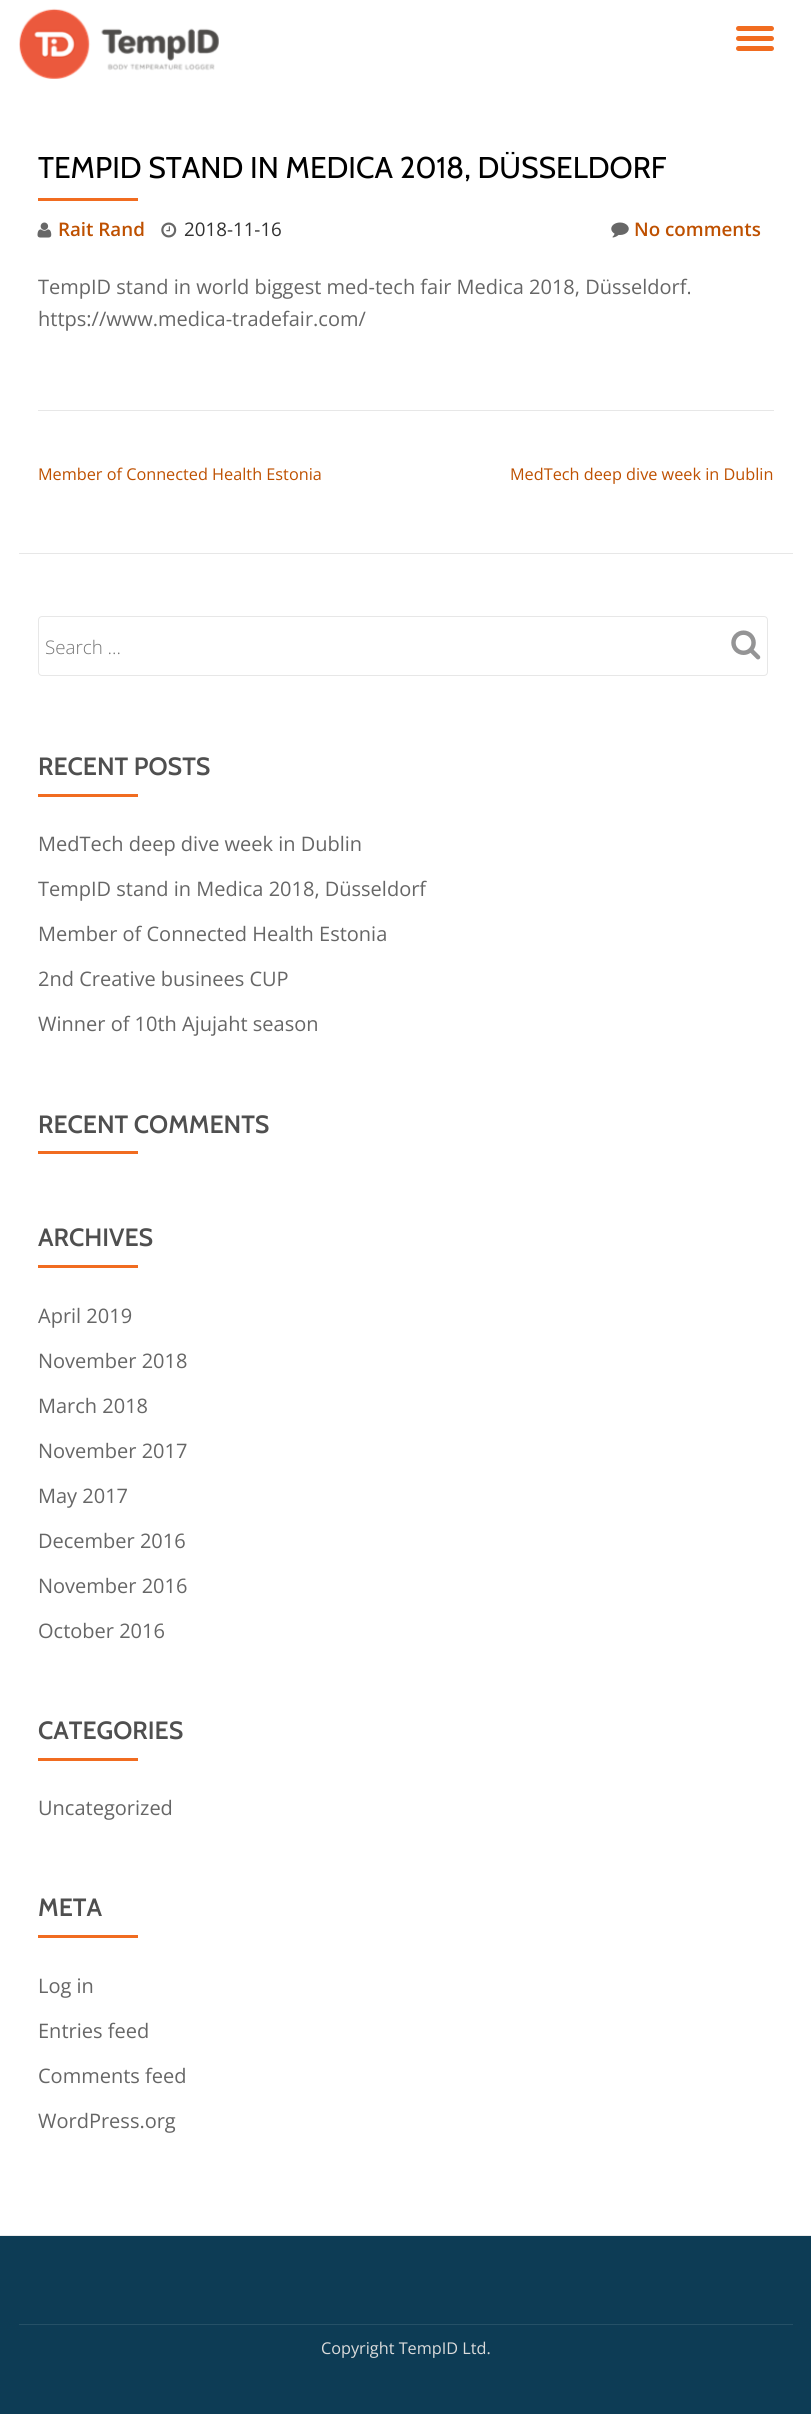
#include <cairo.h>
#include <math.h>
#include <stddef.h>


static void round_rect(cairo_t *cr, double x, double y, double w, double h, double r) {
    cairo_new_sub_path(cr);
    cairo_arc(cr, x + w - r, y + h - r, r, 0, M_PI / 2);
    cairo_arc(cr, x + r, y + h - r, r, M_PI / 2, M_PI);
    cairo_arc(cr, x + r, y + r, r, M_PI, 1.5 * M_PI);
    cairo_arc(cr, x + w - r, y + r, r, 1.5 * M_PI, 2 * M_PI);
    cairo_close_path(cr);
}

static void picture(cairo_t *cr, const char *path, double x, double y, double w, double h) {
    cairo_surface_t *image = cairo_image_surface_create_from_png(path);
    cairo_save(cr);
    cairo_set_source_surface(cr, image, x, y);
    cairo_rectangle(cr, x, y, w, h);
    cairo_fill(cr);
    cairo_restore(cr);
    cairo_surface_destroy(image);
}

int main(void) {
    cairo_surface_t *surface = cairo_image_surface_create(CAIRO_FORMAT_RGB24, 811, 2414);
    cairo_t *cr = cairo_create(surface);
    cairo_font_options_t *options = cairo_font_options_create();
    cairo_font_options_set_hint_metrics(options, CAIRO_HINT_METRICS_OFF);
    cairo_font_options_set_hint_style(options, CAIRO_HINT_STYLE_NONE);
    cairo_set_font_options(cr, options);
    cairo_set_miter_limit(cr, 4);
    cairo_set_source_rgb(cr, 1, 1, 1);
    cairo_paint(cr);
    picture(cr, "img1.png", 19, 8, 200, 71);
    cairo_set_source_rgb(cr, 0.945, 0.424, 0.125);
    round_rect(cr, 736, 26, 38, 5, 2.5);
    cairo_fill(cr);
    round_rect(cr, 736, 36, 38, 5, 2.5);
    cairo_fill(cr);
    round_rect(cr, 736, 46, 38, 5, 2.5);
    cairo_fill(cr);
    cairo_select_font_face(cr, "Cabin", CAIRO_FONT_SLANT_NORMAL, CAIRO_FONT_WEIGHT_NORMAL);
    cairo_set_font_size(cr, 30);
    cairo_set_source_rgb(cr, 0, 0, 0);
    cairo_move_to(cr, 38, 178);
    cairo_show_text(cr, "TEMPID STAND IN MEDICA 2018, DÜSSELDORF");
    cairo_set_source_rgb(cr, 0.945, 0.424, 0.125);
    cairo_rectangle(cr, 38, 198, 100, 3);
    cairo_fill(cr);
    picture(cr, "img2.png", 37, 222, 15, 16);
    cairo_select_font_face(cr, "Open Sans SemiBold", CAIRO_FONT_SLANT_NORMAL, CAIRO_FONT_WEIGHT_NORMAL);
    cairo_set_font_size(cr, 18.75);
    cairo_set_source_rgb(cr, 0.745, 0.314, 0);
    cairo_move_to(cr, 58, 236);
    cairo_show_text(cr, "Rait Rand");
    picture(cr, "img3.png", 161, 222, 16, 16);
    cairo_select_font_face(cr, "Open Sans", CAIRO_FONT_SLANT_NORMAL, CAIRO_FONT_WEIGHT_NORMAL);
    cairo_set_source_rgb(cr, 0.192, 0.192, 0.192);
    cairo_move_to(cr, 184, 236);
    cairo_show_text(cr, "2018-11-16");
    picture(cr, "img4.png", 611, 222, 18, 16);
    cairo_select_font_face(cr, "Open Sans SemiBold", CAIRO_FONT_SLANT_NORMAL, CAIRO_FONT_WEIGHT_NORMAL);
    cairo_set_source_rgb(cr, 0.745, 0.314, 0);
    cairo_move_to(cr, 634, 236);
    cairo_show_text(cr, "No comments");
    cairo_select_font_face(cr, "Open Sans", CAIRO_FONT_SLANT_NORMAL, CAIRO_FONT_WEIGHT_NORMAL);
    cairo_set_font_size(cr, 20);
    cairo_set_source_rgb(cr, 0.4, 0.4, 0.4);
    cairo_move_to(cr, 38, 294);
    cairo_show_text(cr, "TempID stand in world biggest med-tech fair Medica 2018, Düsseldorf.");
    cairo_move_to(cr, 38, 326);
    cairo_show_text(cr, "https://www.medica-tradefair.com/");
    cairo_set_source_rgb(cr, 0.906, 0.906, 0.906);
    cairo_rectangle(cr, 38, 410, 736, 1);
    cairo_fill(cr);
    cairo_set_font_size(cr, 16.25);
    cairo_set_source_rgb(cr, 0.745, 0.314, 0);
    cairo_move_to(cr, 38, 480);
    cairo_show_text(cr, "Member of Connected Health Estonia");
    cairo_move_to(cr, 510, 480);
    cairo_show_text(cr, "MedTech deep dive week in Dublin");
    cairo_set_source_rgb(cr, 0.906, 0.906, 0.906);
    cairo_rectangle(cr, 19, 553, 774, 1);
    cairo_fill(cr);
    round_rect(cr, 38.5, 616.5, 729, 59, 3.5);
    cairo_set_line_width(cr, 1);
    cairo_stroke(cr);
    cairo_select_font_face(cr, "Open Sans Light", CAIRO_FONT_SLANT_NORMAL, CAIRO_FONT_WEIGHT_NORMAL);
    cairo_set_font_size(cr, 18.75);
    cairo_set_source_rgb(cr, 0.459, 0.459, 0.459);
    cairo_move_to(cr, 45, 654);
    cairo_show_text(cr, "Search …");
    picture(cr, "img5.png", 731, 630, 30, 30);
    cairo_select_font_face(cr, "Cabin SemiBold", CAIRO_FONT_SLANT_NORMAL, CAIRO_FONT_WEIGHT_NORMAL);
    cairo_set_font_size(cr, 25);
    cairo_set_source_rgb(cr, 0.31, 0.31, 0.31);
    cairo_move_to(cr, 38, 775);
    cairo_show_text(cr, "RECENT POSTS");
    cairo_set_source_rgb(cr, 0.945, 0.424, 0.125);
    cairo_rectangle(cr, 38, 794, 100, 3);
    cairo_fill(cr);
    cairo_select_font_face(cr, "Open Sans", CAIRO_FONT_SLANT_NORMAL, CAIRO_FONT_WEIGHT_NORMAL);
    cairo_set_font_size(cr, 20);
    cairo_set_source_rgb(cr, 0.4, 0.4, 0.4);
    cairo_move_to(cr, 38, 851);
    cairo_show_text(cr, "MedTech deep dive week in Dublin");
    cairo_move_to(cr, 38, 896);
    cairo_show_text(cr, "TempID stand in Medica 2018, Düsseldorf");
    cairo_move_to(cr, 38, 941);
    cairo_show_text(cr, "Member of Connected Health Estonia");
    cairo_move_to(cr, 38, 986);
    cairo_show_text(cr, "2nd Creative businees CUP");
    cairo_move_to(cr, 38, 1031);
    cairo_show_text(cr, "Winner of 10th Ajujaht season");
    cairo_select_font_face(cr, "Cabin SemiBold", CAIRO_FONT_SLANT_NORMAL, CAIRO_FONT_WEIGHT_NORMAL);
    cairo_set_font_size(cr, 25);
    cairo_set_source_rgb(cr, 0.31, 0.31, 0.31);
    cairo_move_to(cr, 38, 1133);
    cairo_show_text(cr, "RECENT COMMENTS");
    cairo_set_source_rgb(cr, 0.945, 0.424, 0.125);
    cairo_rectangle(cr, 38, 1151, 100, 3);
    cairo_fill(cr);
    cairo_set_source_rgb(cr, 0.31, 0.31, 0.31);
    cairo_move_to(cr, 38, 1246);
    cairo_show_text(cr, "ARCHIVES");
    cairo_set_source_rgb(cr, 0.945, 0.424, 0.125);
    cairo_rectangle(cr, 38, 1265, 100, 3);
    cairo_fill(cr);
    cairo_select_font_face(cr, "Open Sans", CAIRO_FONT_SLANT_NORMAL, CAIRO_FONT_WEIGHT_NORMAL);
    cairo_set_font_size(cr, 20);
    cairo_set_source_rgb(cr, 0.4, 0.4, 0.4);
    cairo_move_to(cr, 38, 1323);
    cairo_show_text(cr, "April 2019");
    cairo_move_to(cr, 38, 1368);
    cairo_show_text(cr, "November 2018");
    cairo_move_to(cr, 38, 1413);
    cairo_show_text(cr, "March 2018");
    cairo_move_to(cr, 38, 1458);
    cairo_show_text(cr, "November 2017");
    cairo_move_to(cr, 38, 1503);
    cairo_show_text(cr, "May 2017");
    cairo_move_to(cr, 38, 1548);
    cairo_show_text(cr, "December 2016");
    cairo_move_to(cr, 38, 1593);
    cairo_show_text(cr, "November 2016");
    cairo_move_to(cr, 38, 1638);
    cairo_show_text(cr, "October 2016");
    cairo_select_font_face(cr, "Cabin SemiBold", CAIRO_FONT_SLANT_NORMAL, CAIRO_FONT_WEIGHT_NORMAL);
    cairo_set_font_size(cr, 25);
    cairo_set_source_rgb(cr, 0.31, 0.31, 0.31);
    cairo_move_to(cr, 38, 1739);
    cairo_show_text(cr, "CATEGORIES");
    cairo_set_source_rgb(cr, 0.945, 0.424, 0.125);
    cairo_rectangle(cr, 38, 1758, 100, 3);
    cairo_fill(cr);
    cairo_select_font_face(cr, "Open Sans", CAIRO_FONT_SLANT_NORMAL, CAIRO_FONT_WEIGHT_NORMAL);
    cairo_set_font_size(cr, 20);
    cairo_set_source_rgb(cr, 0.4, 0.4, 0.4);
    cairo_move_to(cr, 38, 1815);
    cairo_show_text(cr, "Uncategorized");
    cairo_select_font_face(cr, "Cabin SemiBold", CAIRO_FONT_SLANT_NORMAL, CAIRO_FONT_WEIGHT_NORMAL);
    cairo_set_font_size(cr, 25);
    cairo_set_source_rgb(cr, 0.31, 0.31, 0.31);
    cairo_move_to(cr, 38, 1916);
    cairo_show_text(cr, "META");
    cairo_set_source_rgb(cr, 0.945, 0.424, 0.125);
    cairo_rectangle(cr, 38, 1935, 100, 3);
    cairo_fill(cr);
    cairo_select_font_face(cr, "Open Sans", CAIRO_FONT_SLANT_NORMAL, CAIRO_FONT_WEIGHT_NORMAL);
    cairo_set_font_size(cr, 20);
    cairo_set_source_rgb(cr, 0.4, 0.4, 0.4);
    cairo_move_to(cr, 38, 1993);
    cairo_show_text(cr, "Log in");
    cairo_move_to(cr, 38, 2038);
    cairo_show_text(cr, "Entries feed");
    cairo_move_to(cr, 38, 2083);
    cairo_show_text(cr, "Comments feed");
    cairo_move_to(cr, 38, 2128);
    cairo_show_text(cr, "WordPress.org");
    cairo_set_source_rgb(cr, 0.051, 0.235, 0.333);
    cairo_rectangle(cr, 0, 2236, 811, 178);
    cairo_fill(cr);
    cairo_set_source_rgb(cr, 0.918, 0.922, 0.925);
    cairo_rectangle(cr, 0, 2235, 811, 1);
    cairo_fill(cr);
    cairo_set_source_rgb(cr, 0.145, 0.314, 0.4);
    cairo_rectangle(cr, 19, 2324, 774, 1);
    cairo_fill(cr);
    cairo_set_font_size(cr, 16.25);
    cairo_set_source_rgb(cr, 0.859, 0.859, 0.859);
    cairo_move_to(cr, 321, 2354);
    cairo_show_text(cr, "Copyright TempID Ltd.");
    cairo_surface_write_to_png(surface, "page.png");
    cairo_font_options_destroy(options);
    cairo_destroy(cr);
    cairo_surface_destroy(surface);
    return 0;
}
